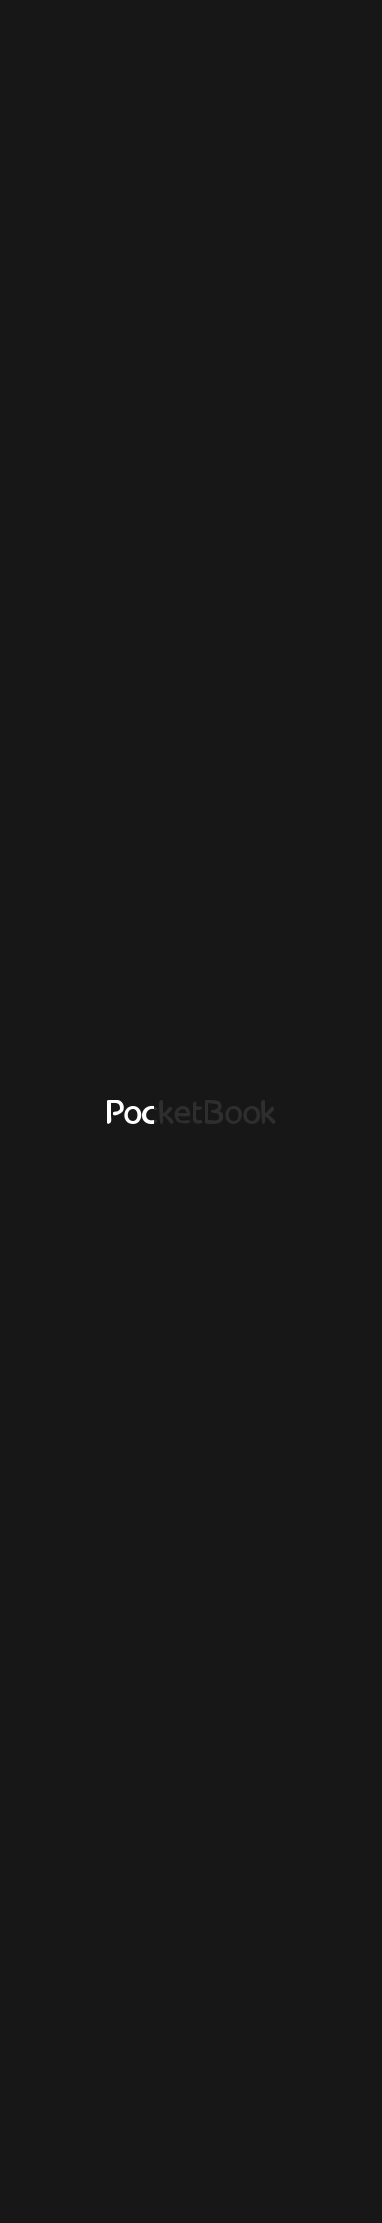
#include <cairo.h>
#include <math.h>
#include <stddef.h>


int main(void) {
    cairo_surface_t *surface = cairo_image_surface_create(CAIRO_FORMAT_RGB24, 382, 2223);
    cairo_t *cr = cairo_create(surface);
    cairo_font_options_t *options = cairo_font_options_create();
    cairo_font_options_set_hint_metrics(options, CAIRO_HINT_METRICS_OFF);
    cairo_font_options_set_hint_style(options, CAIRO_HINT_STYLE_NONE);
    cairo_set_font_options(cr, options);
    cairo_set_miter_limit(cr, 4);
    cairo_set_source_rgb(cr, 0.09, 0.09, 0.09);
    cairo_paint(cr);
    cairo_save(cr);
    cairo_rectangle(cr, 107, 1100, 169, 24);
    cairo_clip(cr);
    cairo_set_source_rgb(cr, 0.18, 0.18, 0.18);
    cairo_set_fill_rule(cr, CAIRO_FILL_RULE_EVEN_ODD);
    cairo_new_path(cr);
    cairo_move_to(cr, 123, 1104);
    cairo_curve_to(cr, 122, 1102, 120, 1100, 117, 1100);
    cairo_line_to(cr, 111, 1100);
    cairo_curve_to(cr, 106, 1100, 107, 1100, 107, 1105);
    cairo_line_to(cr, 107, 1119);
    cairo_curve_to(cr, 107, 1120, 106, 1126, 110, 1123);
    cairo_curve_to(cr, 112, 1122, 111, 1117, 111, 1116);
    cairo_line_to(cr, 111, 1103);
    cairo_curve_to(cr, 115, 1103, 120, 1102, 120, 1108);
    cairo_curve_to(cr, 120, 1109, 120, 1110, 118, 1111);
    cairo_curve_to(cr, 117, 1112, 113, 1111, 113, 1113);
    cairo_curve_to(cr, 112, 1118, 121, 1114, 123, 1111);
    cairo_curve_to(cr, 124, 1109, 124, 1106, 123, 1104);
    cairo_close_path(cr);
    cairo_move_to(cr, 172, 1124);
    cairo_line_to(cr, 173, 1123);
    cairo_curve_to(cr, 175, 1121, 169, 1116, 168, 1116);
    cairo_line_to(cr, 167, 1115);
    cairo_curve_to(cr, 168, 1113, 173, 1110, 172, 1108);
    cairo_line_to(cr, 171, 1107);
    cairo_curve_to(cr, 169, 1105, 166, 1113, 163, 1113);
    cairo_line_to(cr, 163, 1101);
    cairo_line_to(cr, 162, 1100);
    cairo_curve_to(cr, 159, 1100, 159, 1102, 159, 1105);
    cairo_line_to(cr, 160, 1123);
    cairo_line_to(cr, 161, 1124);
    cairo_curve_to(cr, 164, 1124, 163, 1119, 163, 1116);
    cairo_curve_to(cr, 167, 1116, 169, 1124, 172, 1124);
    cairo_close_path(cr);
    cairo_move_to(cr, 223, 1114);
    cairo_curve_to(cr, 222, 1112, 221, 1112, 219, 1111);
    cairo_curve_to(cr, 223, 1109, 222, 1102, 218, 1101);
    cairo_curve_to(cr, 215, 1100, 212, 1100, 209, 1100);
    cairo_curve_to(cr, 208, 1100, 206, 1099, 205, 1101);
    cairo_line_to(cr, 205, 1123);
    cairo_curve_to(cr, 206, 1124, 209, 1124, 211, 1124);
    cairo_curve_to(cr, 215, 1124, 221, 1124, 223, 1119);
    cairo_close_path(cr);
    cairo_move_to(cr, 274, 1124);
    cairo_line_to(cr, 275, 1123);
    cairo_curve_to(cr, 277, 1121, 271, 1117, 270, 1116);
    cairo_line_to(cr, 269, 1115);
    cairo_curve_to(cr, 270, 1114, 275, 1110, 274, 1108);
    cairo_line_to(cr, 273, 1107);
    cairo_curve_to(cr, 271, 1105, 268, 1113, 265, 1113);
    cairo_line_to(cr, 265, 1101);
    cairo_line_to(cr, 264, 1100);
    cairo_curve_to(cr, 261, 1100, 261, 1102, 261, 1105);
    cairo_line_to(cr, 262, 1123);
    cairo_line_to(cr, 263, 1124);
    cairo_curve_to(cr, 266, 1124, 265, 1119, 265, 1117);
    cairo_curve_to(cr, 269, 1117, 271, 1124, 274, 1124);
    cairo_close_path(cr);
    cairo_move_to(cr, 201, 1120);
    cairo_line_to(cr, 202, 1121);
    cairo_curve_to(cr, 205, 1124, 193, 1126, 193, 1119);
    cairo_line_to(cr, 193, 1108);
    cairo_curve_to(cr, 193, 1107, 192, 1100, 196, 1102);
    cairo_curve_to(cr, 197, 1102, 196, 1105, 196, 1106);
    cairo_line_to(cr, 201, 1107);
    cairo_curve_to(cr, 202, 1107, 202, 1107, 202, 1108);
    cairo_curve_to(cr, 202, 1110, 198, 1110, 196, 1110);
    cairo_line_to(cr, 196, 1118);
    cairo_curve_to(cr, 197, 1121, 199, 1120, 201, 1120);
    cairo_close_path(cr);
    cairo_move_to(cr, 212, 1110);
    cairo_curve_to(cr, 215, 1110, 218, 1109, 218, 1106);
    cairo_curve_to(cr, 218, 1105, 217, 1104, 216, 1104);
    cairo_line_to(cr, 208, 1103);
    cairo_line_to(cr, 208, 1120);
    cairo_curve_to(cr, 211, 1120, 218, 1122, 219, 1118);
    cairo_line_to(cr, 219, 1115);
    cairo_curve_to(cr, 217, 1112, 211, 1114, 211, 1111);
    cairo_curve_to(cr, 211, 1111, 211, 1110, 212, 1110);
    cairo_close_path(cr);
    cairo_move_to(cr, 133, 1124);
    cairo_curve_to(cr, 144, 1124, 144, 1106, 133, 1106);
    cairo_curve_to(cr, 122, 1106, 121, 1124, 133, 1124);
    cairo_close_path(cr);
    cairo_move_to(cr, 190, 1114);
    cairo_curve_to(cr, 192, 1118, 180, 1116, 178, 1116);
    cairo_curve_to(cr, 179, 1125, 191, 1117, 190, 1122);
    cairo_curve_to(cr, 189, 1124, 178, 1124, 176, 1120);
    cairo_curve_to(cr, 169, 1106, 190, 1100, 190, 1114);
    cairo_close_path(cr);
    cairo_move_to(cr, 234, 1124);
    cairo_line_to(cr, 233, 1124);
    cairo_curve_to(cr, 244, 1124, 245, 1106, 234, 1106);
    cairo_curve_to(cr, 223, 1106, 222, 1124, 234, 1124);
    cairo_close_path(cr);
    cairo_move_to(cr, 252, 1124);
    cairo_curve_to(cr, 263, 1124, 263, 1106, 252, 1106);
    cairo_curve_to(cr, 241, 1106, 240, 1124, 252, 1124);
    cairo_close_path(cr);
    cairo_move_to(cr, 157, 1121);
    cairo_curve_to(cr, 158, 1124, 143, 1127, 142, 1116);
    cairo_curve_to(cr, 142, 1114, 143, 1111, 144, 1109);
    cairo_curve_to(cr, 150, 1102, 163, 1110, 155, 1110);
    cairo_line_to(cr, 153, 1109);
    cairo_curve_to(cr, 146, 1109, 144, 1118, 149, 1120);
    cairo_curve_to(cr, 151, 1121, 153, 1120, 155, 1120);
    cairo_curve_to(cr, 156, 1119, 157, 1120, 157, 1121);
    cairo_close_path(cr);
    cairo_move_to(cr, 133, 1109);
    cairo_curve_to(cr, 139, 1109, 139, 1121, 133, 1121);
    cairo_curve_to(cr, 126, 1121, 126, 1109, 133, 1109);
    cairo_close_path(cr);
    cairo_move_to(cr, 233, 1109);
    cairo_line_to(cr, 234, 1109);
    cairo_curve_to(cr, 240, 1109, 240, 1121, 234, 1121);
    cairo_curve_to(cr, 227, 1121, 227, 1109, 233, 1109);
    cairo_close_path(cr);
    cairo_move_to(cr, 252, 1109);
    cairo_curve_to(cr, 258, 1109, 258, 1121, 252, 1121);
    cairo_curve_to(cr, 245, 1121, 245, 1109, 252, 1109);
    cairo_close_path(cr);
    cairo_move_to(cr, 187, 1112);
    cairo_line_to(cr, 186, 1112);
    cairo_curve_to(cr, 186, 1108, 179, 1108, 178, 1113);
    cairo_line_to(cr, 187, 1113);
    cairo_close_path(cr);
    cairo_fill(cr);
    cairo_set_source_rgb(cr, 1, 1, 1);
    cairo_new_path(cr);
    cairo_move_to(cr, 123, 1104);
    cairo_curve_to(cr, 122, 1102, 120, 1100, 117, 1100);
    cairo_line_to(cr, 111, 1100);
    cairo_curve_to(cr, 106, 1100, 107, 1100, 107, 1105);
    cairo_line_to(cr, 107, 1119);
    cairo_curve_to(cr, 107, 1120, 106, 1126, 110, 1123);
    cairo_curve_to(cr, 112, 1122, 111, 1117, 111, 1116);
    cairo_line_to(cr, 111, 1103);
    cairo_curve_to(cr, 115, 1103, 120, 1102, 120, 1108);
    cairo_curve_to(cr, 120, 1109, 120, 1110, 118, 1111);
    cairo_curve_to(cr, 117, 1112, 113, 1111, 113, 1113);
    cairo_curve_to(cr, 112, 1118, 121, 1114, 123, 1111);
    cairo_curve_to(cr, 124, 1109, 124, 1106, 123, 1104);
    cairo_close_path(cr);
    cairo_move_to(cr, 154, 1106);
    cairo_curve_to(cr, 139, 1104, 137, 1126, 154, 1124);
    cairo_line_to(cr, 154, 1120);
    cairo_curve_to(cr, 143, 1123, 144, 1107, 154, 1109);
    cairo_close_path(cr);
    cairo_move_to(cr, 133, 1124);
    cairo_curve_to(cr, 144, 1124, 144, 1106, 133, 1106);
    cairo_curve_to(cr, 122, 1106, 121, 1124, 133, 1124);
    cairo_close_path(cr);
    cairo_move_to(cr, 133, 1109);
    cairo_curve_to(cr, 139, 1109, 139, 1121, 133, 1121);
    cairo_curve_to(cr, 126, 1121, 126, 1109, 133, 1109);
    cairo_close_path(cr);
    cairo_fill(cr);
    cairo_restore(cr);
    cairo_surface_write_to_png(surface, "page.png");
    cairo_font_options_destroy(options);
    cairo_destroy(cr);
    cairo_surface_destroy(surface);
    return 0;
}
